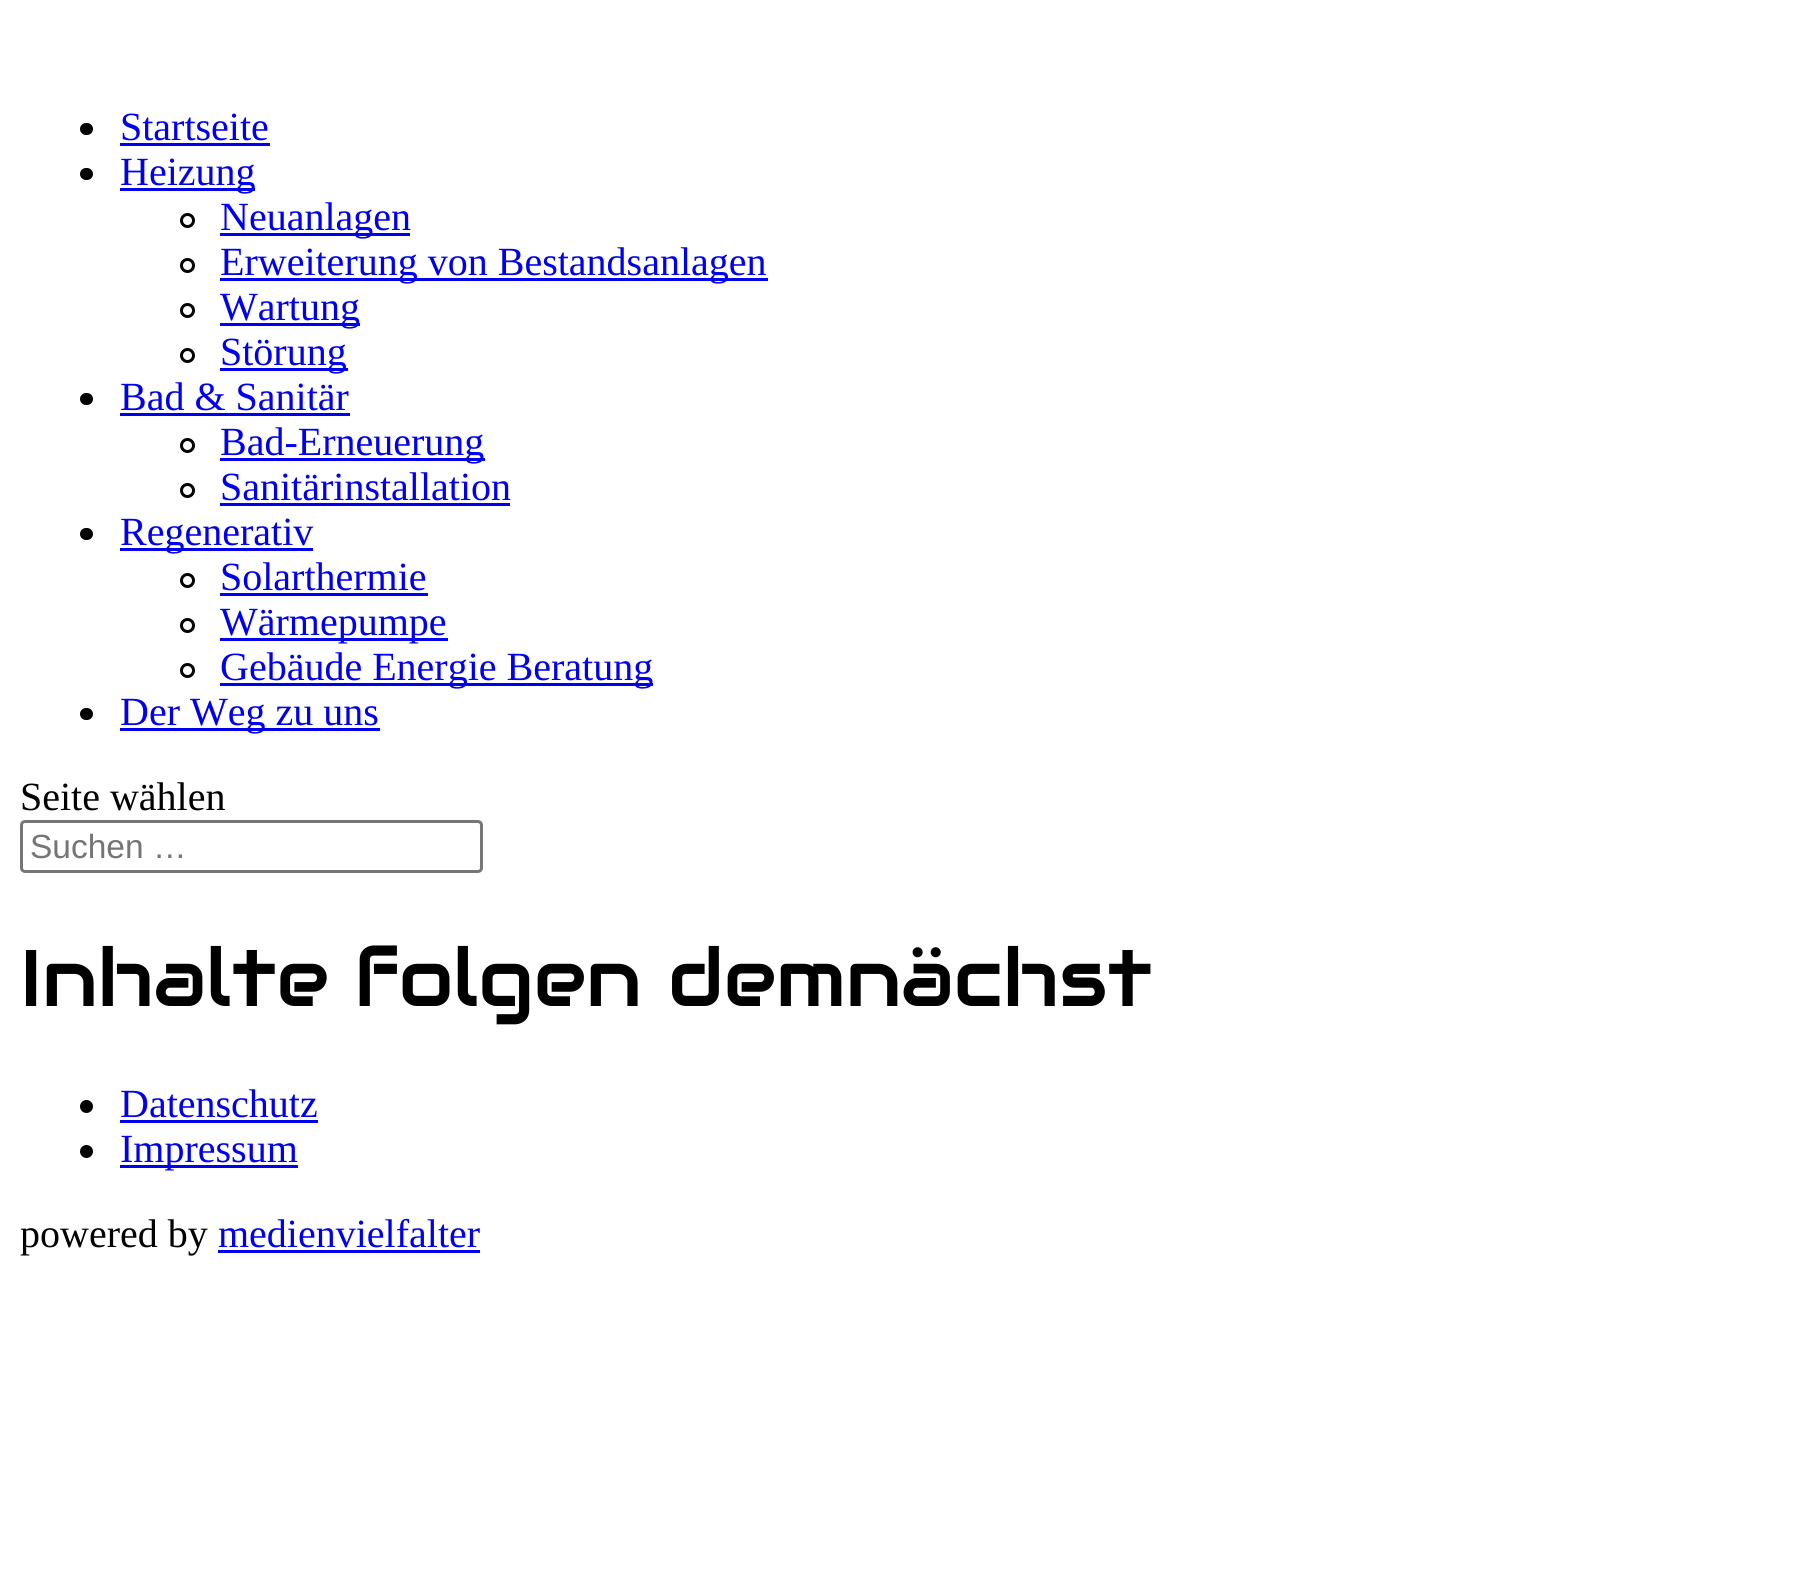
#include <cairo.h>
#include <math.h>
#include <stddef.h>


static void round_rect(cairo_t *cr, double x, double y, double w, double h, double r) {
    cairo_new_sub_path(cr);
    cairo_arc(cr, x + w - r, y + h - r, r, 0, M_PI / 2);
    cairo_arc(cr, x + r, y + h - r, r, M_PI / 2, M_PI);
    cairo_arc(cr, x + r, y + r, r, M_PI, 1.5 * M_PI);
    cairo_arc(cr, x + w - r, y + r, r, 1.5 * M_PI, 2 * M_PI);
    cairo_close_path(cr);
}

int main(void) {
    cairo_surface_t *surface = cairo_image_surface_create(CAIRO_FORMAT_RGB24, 1804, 1582);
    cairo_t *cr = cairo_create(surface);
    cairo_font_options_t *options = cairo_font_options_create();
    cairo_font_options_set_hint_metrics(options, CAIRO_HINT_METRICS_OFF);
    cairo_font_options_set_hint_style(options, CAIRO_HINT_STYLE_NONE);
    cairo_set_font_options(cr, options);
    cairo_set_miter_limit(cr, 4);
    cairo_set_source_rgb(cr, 1, 1, 1);
    cairo_paint(cr);
    cairo_set_source_rgb(cr, 0, 0, 0);
    round_rect(cr, 80, 123, 13, 12, 6);
    cairo_fill(cr);
    cairo_select_font_face(cr, "Liberation Serif", CAIRO_FONT_SLANT_NORMAL, CAIRO_FONT_WEIGHT_NORMAL);
    cairo_set_font_size(cr, 40);
    cairo_set_source_rgb(cr, 0, 0, 0.933);
    cairo_move_to(cr, 120, 140);
    cairo_show_text(cr, "Startseite");
    cairo_rectangle(cr, 120, 143, 150, 3);
    cairo_fill(cr);
    cairo_set_source_rgb(cr, 0, 0, 0);
    round_rect(cr, 80, 168, 13, 12, 6);
    cairo_fill(cr);
    cairo_set_source_rgb(cr, 0, 0, 0.933);
    cairo_rectangle(cr, 120, 188, 135, 3);
    cairo_fill(cr);
    cairo_move_to(cr, 120, 185);
    cairo_show_text(cr, "Heizung");
    cairo_new_path(cr);
    cairo_arc(cr, 187.5, 220.5, 6, 0, 2 * M_PI);
    cairo_set_source_rgb(cr, 0, 0, 0);
    cairo_set_line_width(cr, 3);
    cairo_stroke(cr);
    cairo_set_source_rgb(cr, 0, 0, 0.933);
    cairo_rectangle(cr, 220, 233, 190, 3);
    cairo_fill(cr);
    cairo_move_to(cr, 220, 230);
    cairo_show_text(cr, "Neuanlagen");
    cairo_new_path(cr);
    cairo_arc(cr, 187.5, 265.5, 6, 0, 2 * M_PI);
    cairo_set_source_rgb(cr, 0, 0, 0);
    cairo_stroke(cr);
    cairo_set_source_rgb(cr, 0, 0, 0.933);
    cairo_rectangle(cr, 220, 278, 548, 3);
    cairo_fill(cr);
    cairo_move_to(cr, 220, 275);
    cairo_show_text(cr, "Erweiterung von Bestandsanlagen");
    cairo_new_path(cr);
    cairo_arc(cr, 187.5, 310.5, 6, 0, 2 * M_PI);
    cairo_set_source_rgb(cr, 0, 0, 0);
    cairo_stroke(cr);
    cairo_set_source_rgb(cr, 0, 0, 0.933);
    cairo_rectangle(cr, 220, 323, 140, 3);
    cairo_fill(cr);
    cairo_move_to(cr, 220, 320);
    cairo_show_text(cr, "Wartung");
    cairo_new_path(cr);
    cairo_arc(cr, 187.5, 355.5, 6, 0, 2 * M_PI);
    cairo_set_source_rgb(cr, 0, 0, 0);
    cairo_stroke(cr);
    cairo_set_source_rgb(cr, 0, 0, 0.933);
    cairo_rectangle(cr, 220, 368, 128, 3);
    cairo_fill(cr);
    cairo_move_to(cr, 220, 365);
    cairo_show_text(cr, "Störung");
    cairo_set_source_rgb(cr, 0, 0, 0);
    round_rect(cr, 80, 393, 13, 12, 6);
    cairo_fill(cr);
    cairo_set_source_rgb(cr, 0, 0, 0.933);
    cairo_move_to(cr, 120, 410);
    cairo_show_text(cr, "Bad & Sanitär");
    cairo_rectangle(cr, 120, 413, 230, 3);
    cairo_fill(cr);
    cairo_arc(cr, 187.5, 445.5, 6, 0, 2 * M_PI);
    cairo_set_source_rgb(cr, 0, 0, 0);
    cairo_stroke(cr);
    cairo_set_source_rgb(cr, 0, 0, 0.933);
    cairo_rectangle(cr, 220, 458, 265, 3);
    cairo_fill(cr);
    cairo_move_to(cr, 220, 455);
    cairo_show_text(cr, "Bad-Erneuerung");
    cairo_new_path(cr);
    cairo_arc(cr, 187.5, 490.5, 6, 0, 2 * M_PI);
    cairo_set_source_rgb(cr, 0, 0, 0);
    cairo_stroke(cr);
    cairo_set_source_rgb(cr, 0, 0, 0.933);
    cairo_move_to(cr, 220, 500);
    cairo_show_text(cr, "Sanitärinstallation");
    cairo_rectangle(cr, 220, 503, 290, 3);
    cairo_fill(cr);
    cairo_set_source_rgb(cr, 0, 0, 0);
    round_rect(cr, 80, 528, 13, 12, 6);
    cairo_fill(cr);
    cairo_set_source_rgb(cr, 0, 0, 0.933);
    cairo_rectangle(cr, 120, 548, 193, 3);
    cairo_fill(cr);
    cairo_move_to(cr, 120, 545);
    cairo_show_text(cr, "Regenerativ");
    cairo_new_path(cr);
    cairo_arc(cr, 187.5, 580.5, 6, 0, 2 * M_PI);
    cairo_set_source_rgb(cr, 0, 0, 0);
    cairo_stroke(cr);
    cairo_set_source_rgb(cr, 0, 0, 0.933);
    cairo_move_to(cr, 220, 590);
    cairo_show_text(cr, "Solarthermie");
    cairo_rectangle(cr, 220, 593, 208, 3);
    cairo_fill(cr);
    cairo_arc(cr, 187.5, 625.5, 6, 0, 2 * M_PI);
    cairo_set_source_rgb(cr, 0, 0, 0);
    cairo_stroke(cr);
    cairo_set_source_rgb(cr, 0, 0, 0.933);
    cairo_rectangle(cr, 220, 638, 228, 3);
    cairo_fill(cr);
    cairo_move_to(cr, 220, 635);
    cairo_show_text(cr, "Wärmepumpe");
    cairo_new_path(cr);
    cairo_arc(cr, 187.5, 670.5, 6, 0, 2 * M_PI);
    cairo_set_source_rgb(cr, 0, 0, 0);
    cairo_stroke(cr);
    cairo_set_source_rgb(cr, 0, 0, 0.933);
    cairo_rectangle(cr, 220, 683, 433, 3);
    cairo_fill(cr);
    cairo_move_to(cr, 220, 680);
    cairo_show_text(cr, "Gebäude Energie Beratung");
    cairo_set_source_rgb(cr, 0, 0, 0);
    round_rect(cr, 80, 708, 13, 12, 6);
    cairo_fill(cr);
    cairo_set_source_rgb(cr, 0, 0, 0.933);
    cairo_rectangle(cr, 120, 728, 260, 3);
    cairo_fill(cr);
    cairo_move_to(cr, 120, 725);
    cairo_show_text(cr, "Der Weg zu uns");
    cairo_set_source_rgb(cr, 0, 0, 0);
    cairo_move_to(cr, 20, 810);
    cairo_show_text(cr, "Seite wählen");
    round_rect(cr, 21.5, 821.5, 460, 50, 3.5);
    cairo_set_source_rgb(cr, 0.463, 0.463, 0.463);
    cairo_stroke(cr);
    cairo_select_font_face(cr, "Liberation Sans", CAIRO_FONT_SLANT_NORMAL, CAIRO_FONT_WEIGHT_NORMAL);
    cairo_set_font_size(cr, 33.5);
    cairo_set_source_rgb(cr, 0.459, 0.459, 0.459);
    cairo_move_to(cr, 30, 858);
    cairo_show_text(cr, "Suchen …");
    cairo_select_font_face(cr, "Audiowide", CAIRO_FONT_SLANT_NORMAL, CAIRO_FONT_WEIGHT_NORMAL);
    cairo_set_font_size(cr, 80);
    cairo_set_source_rgb(cr, 0, 0, 0);
    cairo_move_to(cr, 20, 1006);
    cairo_show_text(cr, "Inhalte folgen demnächst");
    cairo_new_path(cr);
    cairo_arc(cr, 86.5, 1106.5, 6.5, 0, 2 * M_PI);
    cairo_fill(cr);
    cairo_select_font_face(cr, "Liberation Serif", CAIRO_FONT_SLANT_NORMAL, CAIRO_FONT_WEIGHT_NORMAL);
    cairo_set_font_size(cr, 40);
    cairo_set_source_rgb(cr, 0, 0, 0.933);
    cairo_move_to(cr, 120, 1117);
    cairo_show_text(cr, "Datenschutz");
    cairo_rectangle(cr, 120, 1120, 198, 3);
    cairo_fill(cr);
    cairo_set_source_rgb(cr, 0, 0, 0);
    cairo_arc(cr, 86.5, 1151.5, 6.5, 0, 2 * M_PI);
    cairo_fill(cr);
    cairo_set_source_rgb(cr, 0, 0, 0.933);
    cairo_rectangle(cr, 120, 1165, 178, 3);
    cairo_fill(cr);
    cairo_move_to(cr, 120, 1162);
    cairo_show_text(cr, "Impressum");
    cairo_set_source_rgb(cr, 0, 0, 0);
    cairo_move_to(cr, 20, 1247);
    cairo_show_text(cr, "powered by");
    cairo_set_source_rgb(cr, 0, 0, 0.933);
    cairo_move_to(cr, 218, 1247);
    cairo_show_text(cr, "medienvielfalter");
    cairo_rectangle(cr, 218, 1250, 262, 3);
    cairo_fill(cr);
    cairo_surface_write_to_png(surface, "page.png");
    cairo_font_options_destroy(options);
    cairo_destroy(cr);
    cairo_surface_destroy(surface);
    return 0;
}
